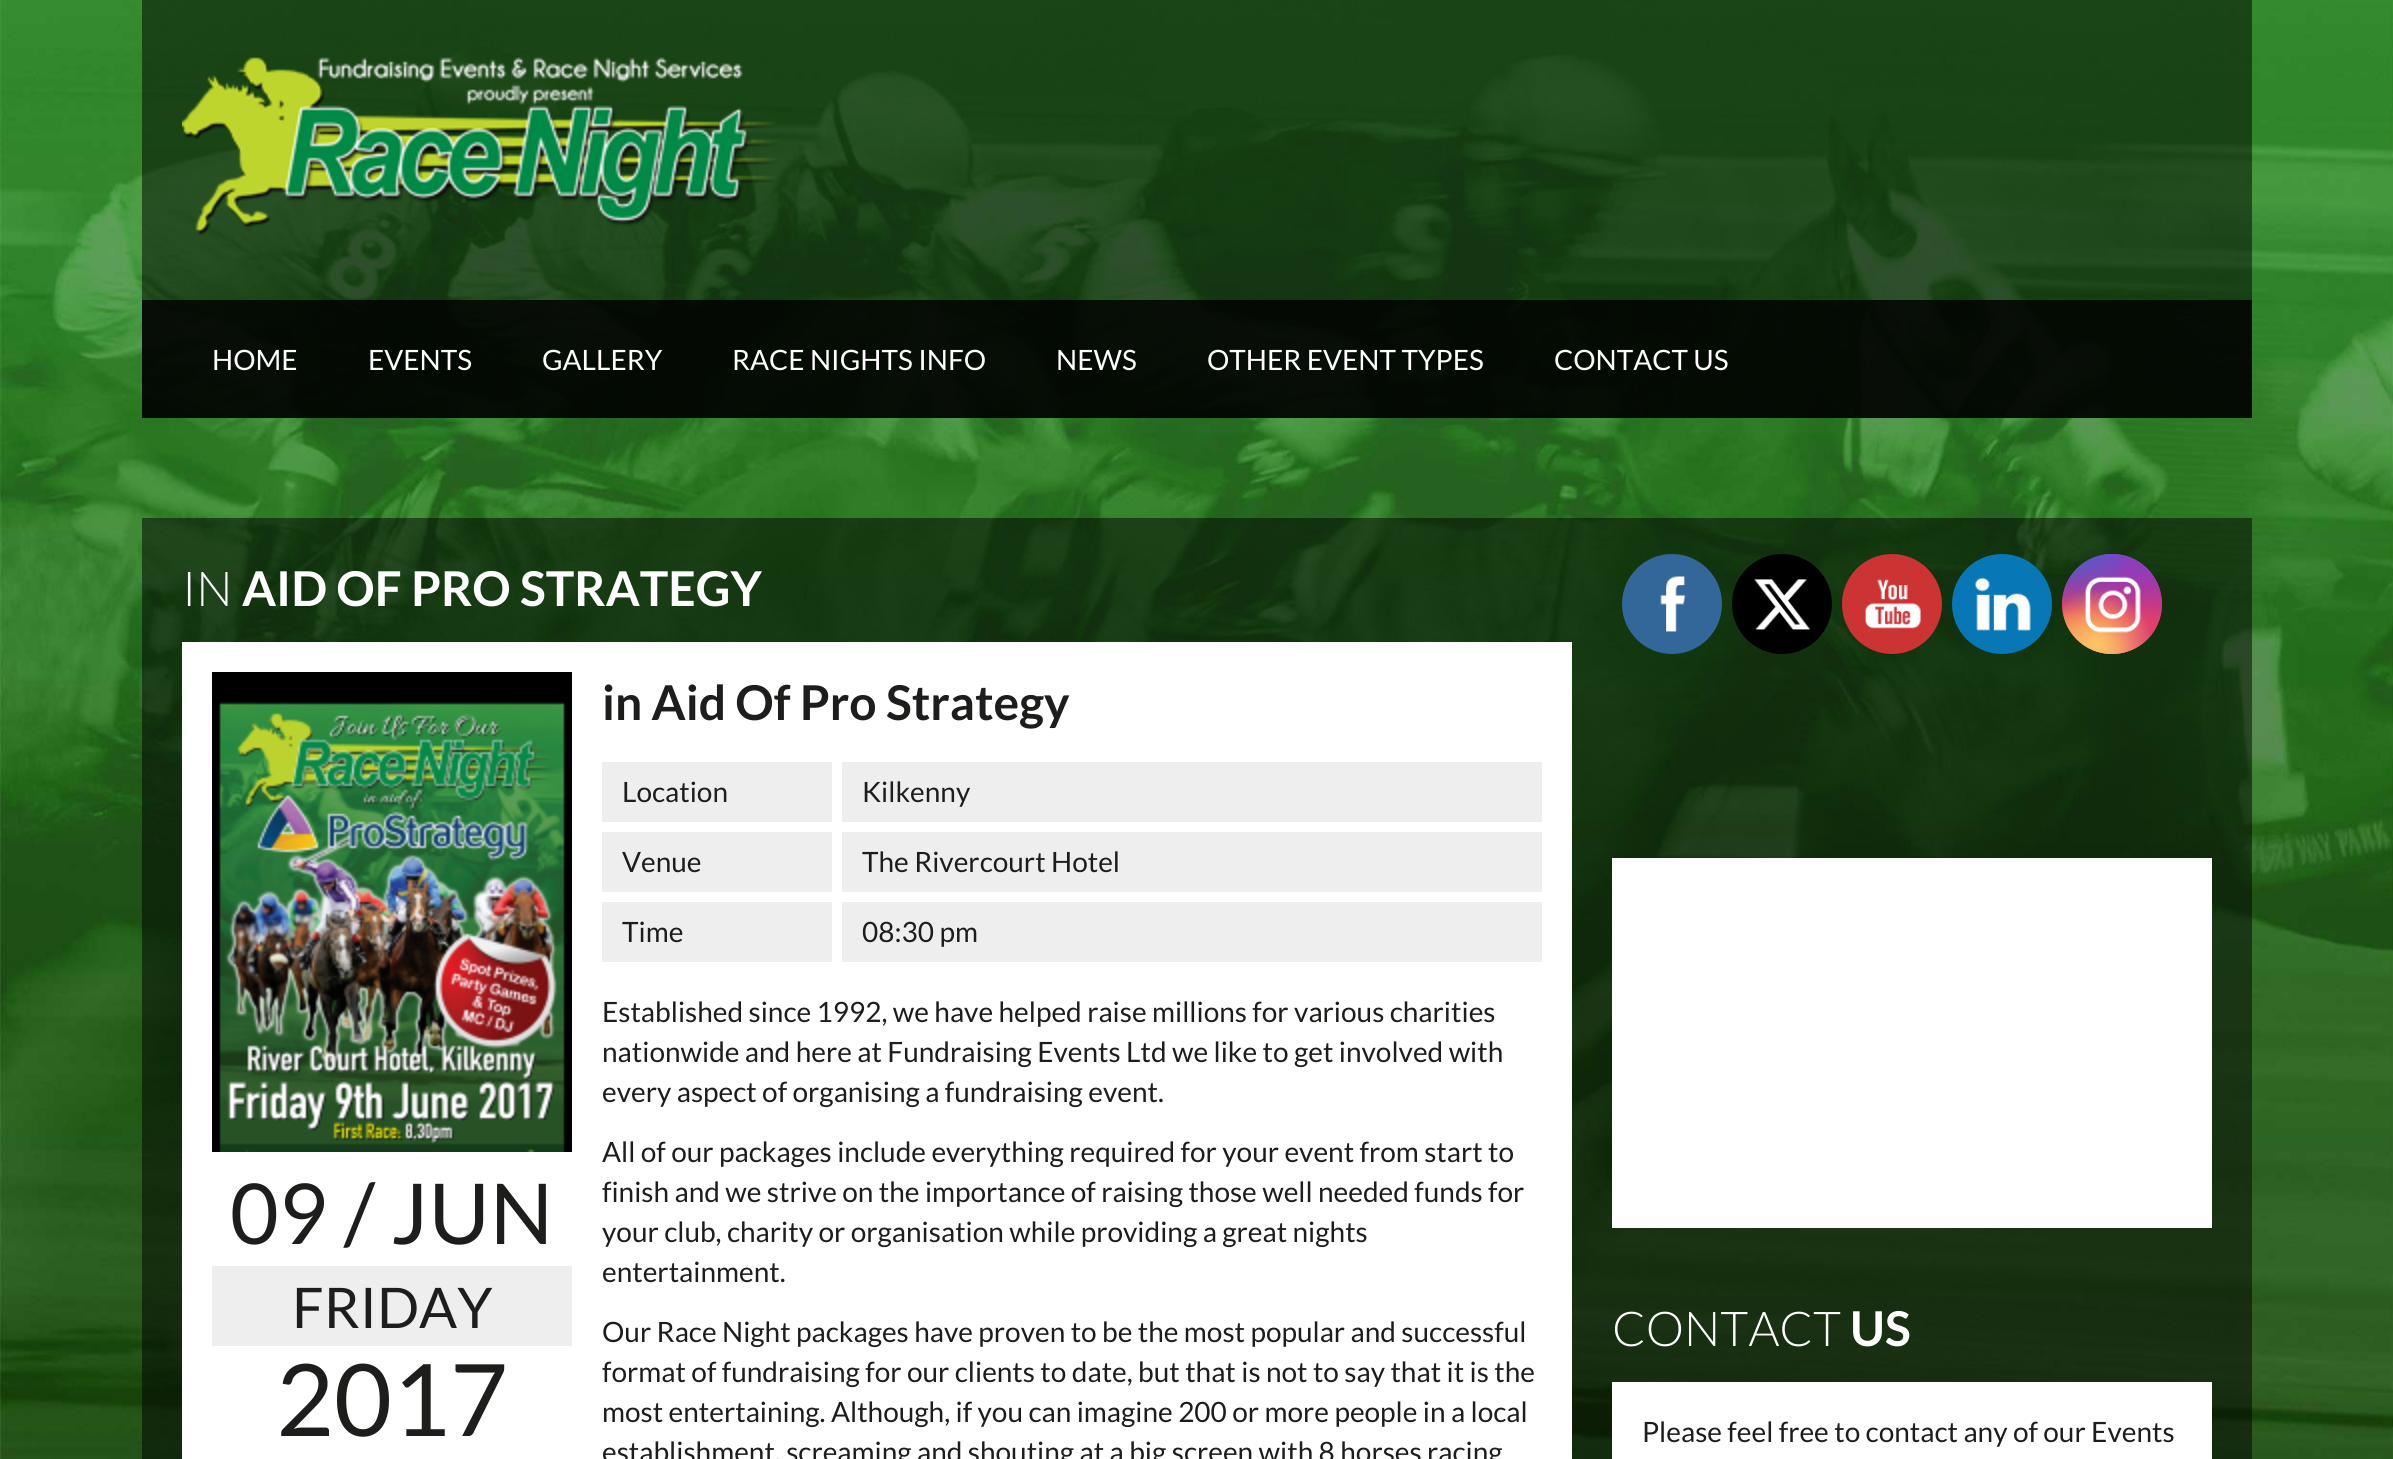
#include <cairo.h>
#include <math.h>
#include <stddef.h>


static void picture(cairo_t *cr, const char *path, double x, double y, double w, double h) {
    cairo_surface_t *image = cairo_image_surface_create_from_png(path);
    cairo_save(cr);
    cairo_set_source_surface(cr, image, x, y);
    cairo_rectangle(cr, x, y, w, h);
    cairo_fill(cr);
    cairo_restore(cr);
    cairo_surface_destroy(image);
}

int main(void) {
    cairo_surface_t *surface = cairo_image_surface_create(CAIRO_FORMAT_RGB24, 2393, 1459);
    cairo_t *cr = cairo_create(surface);
    cairo_font_options_t *options = cairo_font_options_create();
    cairo_font_options_set_hint_metrics(options, CAIRO_HINT_METRICS_OFF);
    cairo_font_options_set_hint_style(options, CAIRO_HINT_STYLE_NONE);
    cairo_set_font_options(cr, options);
    cairo_set_miter_limit(cr, 4);
    cairo_pattern_t *gradient;
    cairo_set_source_rgb(cr, 1, 1, 1);
    cairo_paint(cr);
    picture(cr, "img1.png", 0, 0, 2393, 1459);
    cairo_set_source_rgba(cr, 0, 0, 0, 0.5);
    cairo_rectangle(cr, 142, 0, 2110, 300);
    cairo_fill(cr);
    picture(cr, "img2.png", 182, 57, 595, 193);
    cairo_set_source_rgba(cr, 0, 0, 0, 0.91);
    cairo_rectangle(cr, 142, 300, 2110, 118);
    cairo_fill(cr);
    cairo_select_font_face(cr, "Lato", CAIRO_FONT_SLANT_NORMAL, CAIRO_FONT_WEIGHT_NORMAL);
    cairo_set_font_size(cr, 28);
    cairo_set_source_rgb(cr, 1, 1, 1);
    cairo_move_to(cr, 212, 370);
    cairo_show_text(cr, "HOME");
    cairo_move_to(cr, 368, 370);
    cairo_show_text(cr, "EVENTS");
    cairo_move_to(cr, 542, 370);
    cairo_show_text(cr, "GALLERY");
    cairo_move_to(cr, 732, 370);
    cairo_show_text(cr, "RACE NIGHTS INFO");
    cairo_move_to(cr, 1056, 370);
    cairo_show_text(cr, "NEWS");
    cairo_move_to(cr, 1207, 370);
    cairo_show_text(cr, "OTHER EVENT TYPES");
    cairo_move_to(cr, 1554, 370);
    cairo_show_text(cr, "CONTACT US");
    cairo_set_source_rgba(cr, 0, 0, 0, 0.5);
    cairo_rectangle(cr, 142, 518, 2110, 941);
    cairo_fill(cr);
    cairo_select_font_face(cr, "Lato Light", CAIRO_FONT_SLANT_NORMAL, CAIRO_FONT_WEIGHT_NORMAL);
    cairo_set_font_size(cr, 48);
    cairo_set_source_rgb(cr, 1, 1, 1);
    cairo_move_to(cr, 182, 606);
    cairo_show_text(cr, "IN");
    cairo_select_font_face(cr, "Lato", CAIRO_FONT_SLANT_NORMAL, CAIRO_FONT_WEIGHT_BOLD);
    cairo_move_to(cr, 242, 606);
    cairo_show_text(cr, "AID OF PRO STRATEGY");
    cairo_rectangle(cr, 182, 642, 1390, 817);
    cairo_fill(cr);
    picture(cr, "img3.png", 212, 672, 360, 480);
    cairo_select_font_face(cr, "Lato", CAIRO_FONT_SLANT_NORMAL, CAIRO_FONT_WEIGHT_NORMAL);
    cairo_set_font_size(cr, 84);
    cairo_set_source_rgb(cr, 0.114, 0.114, 0.106);
    cairo_move_to(cr, 230, 1244);
    cairo_show_text(cr, "09 / JUN");
    cairo_set_source_rgb(cr, 0.933, 0.933, 0.933);
    cairo_rectangle(cr, 212, 1266, 360, 80);
    cairo_fill(cr);
    cairo_set_font_size(cr, 56);
    cairo_set_source_rgb(cr, 0.114, 0.114, 0.106);
    cairo_move_to(cr, 292, 1328);
    cairo_show_text(cr, "FRIDAY");
    cairo_set_font_size(cr, 100);
    cairo_move_to(cr, 276, 1436);
    cairo_show_text(cr, "2017");
    cairo_select_font_face(cr, "Lato", CAIRO_FONT_SLANT_NORMAL, CAIRO_FONT_WEIGHT_BOLD);
    cairo_set_font_size(cr, 48);
    cairo_move_to(cr, 602, 720);
    cairo_show_text(cr, "in Aid Of Pro Strategy");
    cairo_set_source_rgb(cr, 0.933, 0.933, 0.933);
    cairo_rectangle(cr, 602, 762, 230, 60);
    cairo_fill(cr);
    cairo_select_font_face(cr, "Lato", CAIRO_FONT_SLANT_NORMAL, CAIRO_FONT_WEIGHT_NORMAL);
    cairo_set_font_size(cr, 28);
    cairo_set_source_rgb(cr, 0.114, 0.114, 0.106);
    cairo_move_to(cr, 622, 802);
    cairo_show_text(cr, "Location");
    cairo_set_source_rgb(cr, 0.933, 0.933, 0.933);
    cairo_rectangle(cr, 842, 762, 700, 60);
    cairo_fill(cr);
    cairo_set_source_rgb(cr, 0.114, 0.114, 0.106);
    cairo_move_to(cr, 862, 802);
    cairo_show_text(cr, "Kilkenny");
    cairo_set_source_rgb(cr, 0.933, 0.933, 0.933);
    cairo_rectangle(cr, 602, 832, 230, 60);
    cairo_fill(cr);
    cairo_set_source_rgb(cr, 0.114, 0.114, 0.106);
    cairo_move_to(cr, 622, 872);
    cairo_show_text(cr, "Venue");
    cairo_set_source_rgb(cr, 0.933, 0.933, 0.933);
    cairo_rectangle(cr, 842, 832, 700, 60);
    cairo_fill(cr);
    cairo_set_source_rgb(cr, 0.114, 0.114, 0.106);
    cairo_move_to(cr, 862, 872);
    cairo_show_text(cr, "The Rivercourt Hotel");
    cairo_set_source_rgb(cr, 0.933, 0.933, 0.933);
    cairo_rectangle(cr, 602, 902, 230, 60);
    cairo_fill(cr);
    cairo_set_source_rgb(cr, 0.114, 0.114, 0.106);
    cairo_move_to(cr, 622, 942);
    cairo_show_text(cr, "Time");
    cairo_set_source_rgb(cr, 0.933, 0.933, 0.933);
    cairo_rectangle(cr, 842, 902, 700, 60);
    cairo_fill(cr);
    cairo_set_source_rgb(cr, 0.114, 0.114, 0.106);
    cairo_move_to(cr, 862, 942);
    cairo_show_text(cr, "08:30 pm");
    cairo_move_to(cr, 602, 1022);
    cairo_show_text(cr, "Established since 1992, we have helped raise millions for various charities");
    cairo_move_to(cr, 602, 1062);
    cairo_show_text(cr, "nationwide and here at Fundraising Events Ltd we like to get involved with");
    cairo_move_to(cr, 602, 1102);
    cairo_show_text(cr, "every aspect of organising a fundraising event.");
    cairo_move_to(cr, 602, 1162);
    cairo_show_text(cr, "All of our packages include everything required for your event from start to");
    cairo_move_to(cr, 602, 1202);
    cairo_show_text(cr, "finish and we strive on the importance of raising those well needed funds for");
    cairo_move_to(cr, 602, 1242);
    cairo_show_text(cr, "your club, charity or organisation while providing a great nights");
    cairo_move_to(cr, 602, 1282);
    cairo_show_text(cr, "entertainment.");
    cairo_move_to(cr, 602, 1342);
    cairo_show_text(cr, "Our Race Night packages have proven to be the most popular and successful");
    cairo_move_to(cr, 602, 1382);
    cairo_show_text(cr, "format of fundraising for our clients to date, but that is not to say that it is the");
    cairo_move_to(cr, 602, 1422);
    cairo_show_text(cr, "most entertaining. Although, if you can imagine 200 or more people in a local");
    cairo_move_to(cr, 602, 1462);
    cairo_show_text(cr, "establishment, screaming and shouting at a big screen with 8 horses racing");
    cairo_set_source_rgb(cr, 0.2, 0.4, 0.6);
    cairo_new_path(cr);
    cairo_arc(cr, 1672, 604, 50, 0, 2 * M_PI);
    cairo_fill(cr);
    picture(cr, "img4.png", 1660, 576, 26, 56);
    cairo_set_source_rgb(cr, 0, 0, 0);
    cairo_arc(cr, 1782, 604, 50, 0, 2 * M_PI);
    cairo_fill(cr);
    picture(cr, "img5.png", 1754, 579, 57, 51);
    cairo_set_source_rgb(cr, 0.8, 0.2, 0.2);
    cairo_arc(cr, 1892, 604, 50, 0, 2 * M_PI);
    cairo_fill(cr);
    picture(cr, "img6.png", 1865, 579, 56, 50);
    cairo_set_source_rgb(cr, 0.031, 0.467, 0.71);
    cairo_arc(cr, 2002, 604, 50, 0, 2 * M_PI);
    cairo_fill(cr);
    picture(cr, "img7.png", 1975, 577, 56, 54);
    gradient = cairo_pattern_create_linear(2112, 554, 2112, 654);
    cairo_pattern_add_color_stop_rgba(gradient, 0, 0.396, 0.349, 0.792, 1);
    cairo_pattern_add_color_stop_rgba(gradient, 0.3, 0.737, 0.192, 0.561, 1);
    cairo_pattern_add_color_stop_rgba(gradient, 0.5, 0.89, 0.247, 0.373, 1);
    cairo_pattern_add_color_stop_rgba(gradient, 0.7, 0.969, 0.463, 0.22, 1);
    cairo_pattern_add_color_stop_rgba(gradient, 1, 0.996, 0.776, 0.427, 1);
    cairo_set_source(cr, gradient);
    cairo_pattern_destroy(gradient);
    cairo_arc(cr, 2112, 604, 50, 0, 2 * M_PI);
    cairo_fill(cr);
    gradient = cairo_pattern_create_radial(2162, 654, 0, 2162, 654, 141);
    cairo_pattern_add_color_stop_rgba(gradient, 0, 0.851, 0.192, 0.478, 1);
    cairo_pattern_add_color_stop_rgba(gradient, 1, 0.851, 0.192, 0.478, 0);
    cairo_set_source(cr, gradient);
    cairo_pattern_destroy(gradient);
    cairo_arc(cr, 2112, 604, 50, 0, 2 * M_PI);
    cairo_fill(cr);
    gradient = cairo_pattern_create_radial(0, 0, 0, 0, 0, 1);
    cairo_pattern_set_matrix(gradient, &(cairo_matrix_t){1.0 / 85, 0, 0, 1.0 / 170, -1.0 * 2122 / 85, -1.0 * 534 / 170});
    cairo_pattern_add_color_stop_rgba(gradient, 0, 0.537, 0.239, 0.761, 1);
    cairo_pattern_add_color_stop_rgba(gradient, 0.5, 0.537, 0.239, 0.761, 0);
    cairo_set_source(cr, gradient);
    cairo_pattern_destroy(gradient);
    cairo_arc(cr, 2112, 604, 50, 0, 2 * M_PI);
    cairo_fill(cr);
    gradient = cairo_pattern_create_radial(2162, 554, 0, 2162, 554, 141);
    cairo_pattern_add_color_stop_rgba(gradient, 0, 0.537, 0.239, 0.761, 1);
    cairo_pattern_add_color_stop_rgba(gradient, 0.5, 0.537, 0.239, 0.761, 0);
    cairo_set_source(cr, gradient);
    cairo_pattern_destroy(gradient);
    cairo_arc(cr, 2112, 604, 50, 0, 2 * M_PI);
    cairo_fill(cr);
    gradient = cairo_pattern_create_radial(0, 0, 0, 0, 0, 1);
    cairo_pattern_set_matrix(gradient, &(cairo_matrix_t){1.0 / 113, 0, 0, 1.0 / 212, -1.0 * 2082 / 113, -1.0 * 504 / 212});
    cairo_pattern_add_color_stop_rgba(gradient, 0, 0.322, 0.345, 0.812, 1);
    cairo_pattern_add_color_stop_rgba(gradient, 0.5, 0.322, 0.345, 0.812, 0);
    cairo_set_source(cr, gradient);
    cairo_pattern_destroy(gradient);
    cairo_arc(cr, 2112, 604, 50, 0, 2 * M_PI);
    cairo_fill(cr);
    gradient = cairo_pattern_create_radial(0, 0, 0, 0, 0, 1);
    cairo_pattern_set_matrix(gradient, &(cairo_matrix_t){1.0 / 141, 0, 0, 1.0 / 177, -1.0 * 2062 / 141, -1.0 * 529 / 177});
    cairo_pattern_add_color_stop_rgba(gradient, 0, 0.322, 0.345, 0.812, 1);
    cairo_pattern_add_color_stop_rgba(gradient, 0.5, 0.322, 0.345, 0.812, 0);
    cairo_set_source(cr, gradient);
    cairo_pattern_destroy(gradient);
    cairo_arc(cr, 2112, 604, 50, 0, 2 * M_PI);
    cairo_fill(cr);
    gradient = cairo_pattern_create_radial(2062, 694, 0, 2062, 694, 172);
    cairo_pattern_add_color_stop_rgba(gradient, 0, 0.996, 0.773, 0.392, 1);
    cairo_pattern_add_color_stop_rgba(gradient, 0.5, 0.996, 0.773, 0.392, 0);
    cairo_set_source(cr, gradient);
    cairo_pattern_destroy(gradient);
    cairo_arc(cr, 2112, 604, 50, 0, 2 * M_PI);
    cairo_fill(cr);
    gradient = cairo_pattern_create_radial(2097, 644, 0, 2097, 644, 111);
    cairo_pattern_add_color_stop_rgba(gradient, 0, 0.996, 0.773, 0.392, 1);
    cairo_pattern_add_color_stop_rgba(gradient, 0.5, 0.996, 0.773, 0.392, 0);
    cairo_set_source(cr, gradient);
    cairo_pattern_destroy(gradient);
    cairo_arc(cr, 2112, 604, 50, 0, 2 * M_PI);
    cairo_fill(cr);
    picture(cr, "img8.png", 2085, 576, 56, 57);
    cairo_set_source_rgb(cr, 1, 1, 1);
    cairo_rectangle(cr, 1612, 858, 600, 370);
    cairo_fill(cr);
    cairo_select_font_face(cr, "Lato Light", CAIRO_FONT_SLANT_NORMAL, CAIRO_FONT_WEIGHT_NORMAL);
    cairo_set_font_size(cr, 48);
    cairo_move_to(cr, 1612, 1346);
    cairo_show_text(cr, "CONTACT");
    cairo_select_font_face(cr, "Lato", CAIRO_FONT_SLANT_NORMAL, CAIRO_FONT_WEIGHT_BOLD);
    cairo_move_to(cr, 1850, 1346);
    cairo_show_text(cr, "US");
    cairo_rectangle(cr, 1612, 1382, 600, 77);
    cairo_fill(cr);
    cairo_select_font_face(cr, "Lato", CAIRO_FONT_SLANT_NORMAL, CAIRO_FONT_WEIGHT_NORMAL);
    cairo_set_font_size(cr, 28);
    cairo_set_source_rgb(cr, 0.114, 0.114, 0.106);
    cairo_move_to(cr, 1642, 1442);
    cairo_show_text(cr, "Please feel free to contact any of our Events");
    cairo_surface_write_to_png(surface, "page.png");
    cairo_font_options_destroy(options);
    cairo_destroy(cr);
    cairo_surface_destroy(surface);
    return 0;
}
